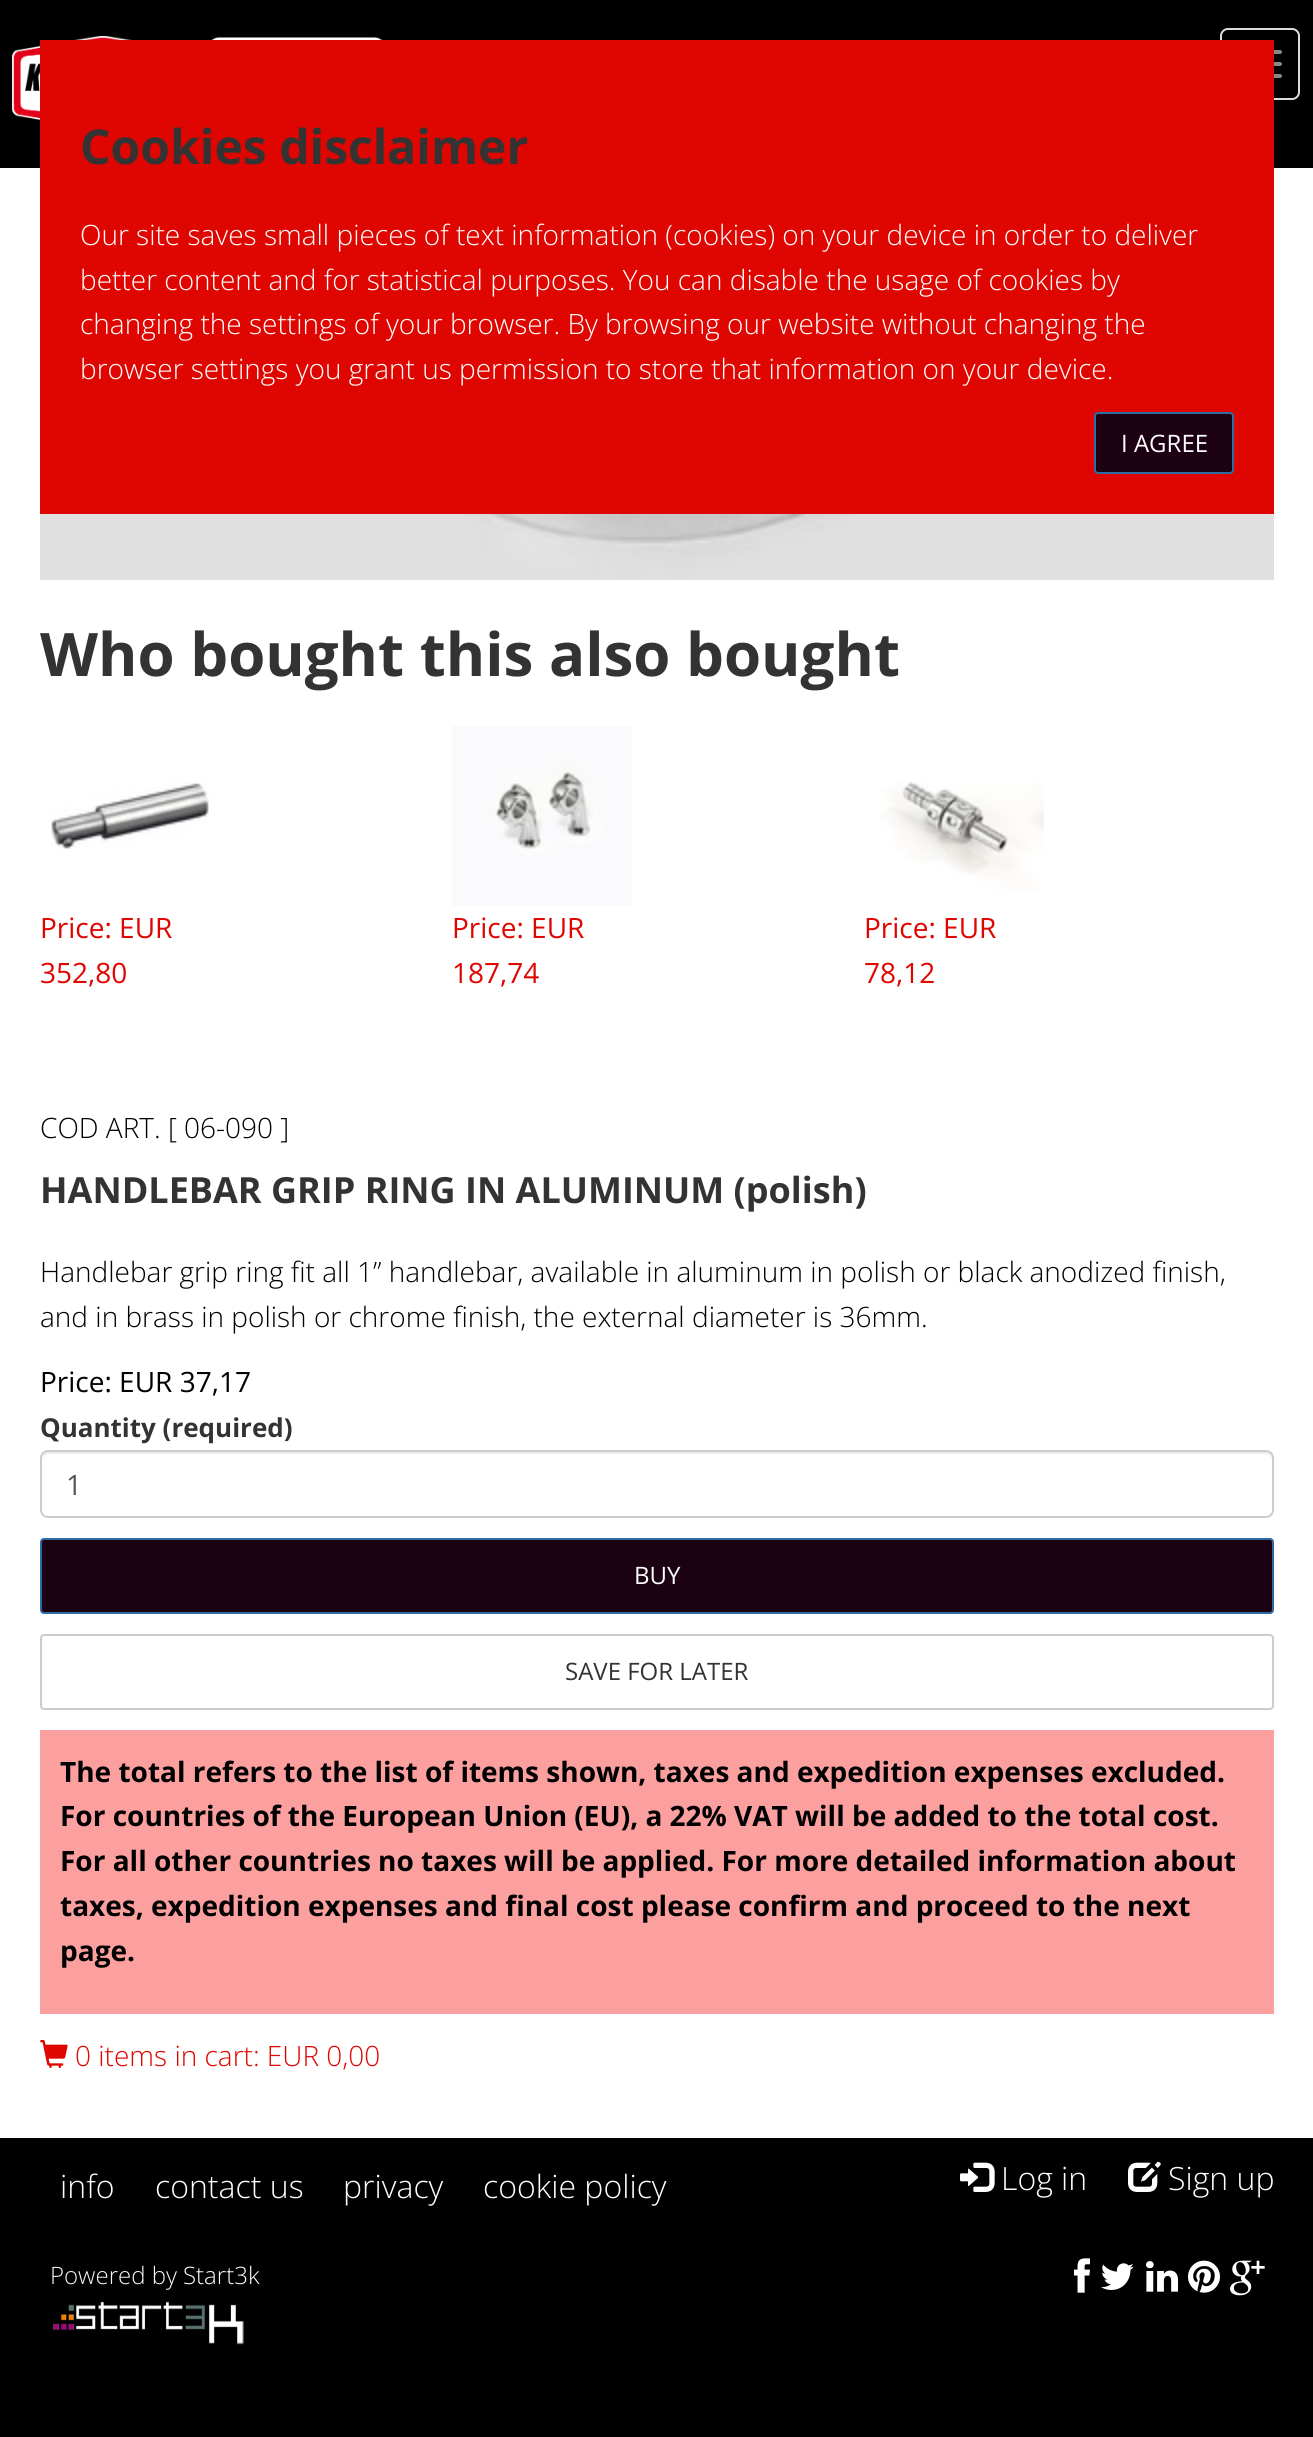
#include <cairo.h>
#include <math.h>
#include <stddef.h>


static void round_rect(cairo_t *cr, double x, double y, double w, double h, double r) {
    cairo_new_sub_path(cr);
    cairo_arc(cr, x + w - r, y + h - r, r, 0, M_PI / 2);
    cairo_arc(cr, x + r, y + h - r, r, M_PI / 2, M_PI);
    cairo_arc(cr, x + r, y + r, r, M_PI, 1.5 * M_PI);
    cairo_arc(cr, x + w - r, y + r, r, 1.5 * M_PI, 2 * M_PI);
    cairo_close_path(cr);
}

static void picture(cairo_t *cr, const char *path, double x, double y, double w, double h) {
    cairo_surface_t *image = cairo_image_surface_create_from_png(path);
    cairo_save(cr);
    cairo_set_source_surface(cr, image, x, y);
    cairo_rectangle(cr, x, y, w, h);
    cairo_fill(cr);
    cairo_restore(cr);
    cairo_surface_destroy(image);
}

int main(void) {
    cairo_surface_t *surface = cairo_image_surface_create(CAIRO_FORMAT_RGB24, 1313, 2437);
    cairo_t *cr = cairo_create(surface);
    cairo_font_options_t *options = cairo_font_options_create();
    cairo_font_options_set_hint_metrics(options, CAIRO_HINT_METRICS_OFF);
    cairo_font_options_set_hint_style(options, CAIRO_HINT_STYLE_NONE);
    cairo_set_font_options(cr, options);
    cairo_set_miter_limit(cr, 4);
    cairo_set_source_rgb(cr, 1, 1, 1);
    cairo_paint(cr);
    cairo_set_source_rgb(cr, 0, 0, 0);
    cairo_rectangle(cr, 0, 0, 1313, 168);
    cairo_fill(cr);
    picture(cr, "img1.png", 12, 36, 120, 85);
    picture(cr, "img2.png", 211, 37, 172, 3);
    round_rect(cr, 1221, 29, 78, 70, 7);
    cairo_set_source_rgb(cr, 0.867, 0.867, 0.867);
    cairo_stroke(cr);
    cairo_set_source_rgb(cr, 0.533, 0.533, 0.533);
    round_rect(cr, 1238, 50, 44, 4, 2);
    cairo_fill(cr);
    round_rect(cr, 1238, 62, 44, 4, 2);
    cairo_fill(cr);
    round_rect(cr, 1238, 74, 44, 4, 2);
    cairo_fill(cr);
    cairo_set_source_rgb(cr, 0.875, 0.02, 0);
    cairo_rectangle(cr, 40, 40, 1234, 474);
    cairo_fill(cr);
    cairo_select_font_face(cr, "Open Sans", CAIRO_FONT_SLANT_NORMAL, CAIRO_FONT_WEIGHT_BOLD);
    cairo_set_font_size(cr, 48);
    cairo_set_source_rgb(cr, 0.2, 0.2, 0.2);
    cairo_move_to(cr, 80, 164);
    cairo_show_text(cr, "Cookies disclaimer");
    cairo_select_font_face(cr, "Open Sans Light", CAIRO_FONT_SLANT_NORMAL, CAIRO_FONT_WEIGHT_NORMAL);
    cairo_set_font_size(cr, 28);
    cairo_set_source_rgb(cr, 1, 1, 1);
    cairo_move_to(cr, 80, 245);
    cairo_show_text(cr, "Our site saves small pieces of text information (cookies) on your device in order to deliver");
    cairo_move_to(cr, 80, 290);
    cairo_show_text(cr, "better content and for statistical purposes. You can disable the usage of cookies by");
    cairo_move_to(cr, 80, 334);
    cairo_show_text(cr, "changing the settings of your browser. By browsing our website without changing the");
    cairo_move_to(cr, 80, 379);
    cairo_show_text(cr, "browser settings you grant us permission to store that information on your device.");
    cairo_set_source_rgb(cr, 0.11, 0.004, 0.075);
    round_rect(cr, 1095, 413, 138, 60, 3);
    cairo_fill_preserve(cr);
    cairo_set_source_rgb(cr, 0.18, 0.427, 0.643);
    cairo_stroke(cr);
    cairo_select_font_face(cr, "Open Sans", CAIRO_FONT_SLANT_NORMAL, CAIRO_FONT_WEIGHT_NORMAL);
    cairo_set_font_size(cr, 24);
    cairo_set_source_rgb(cr, 1, 1, 1);
    cairo_move_to(cr, 1121, 452);
    cairo_show_text(cr, "I AGREE");
    picture(cr, "img3.png", 40, 514, 1234, 66);
    cairo_select_font_face(cr, "Open Sans", CAIRO_FONT_SLANT_NORMAL, CAIRO_FONT_WEIGHT_BOLD);
    cairo_set_font_size(cr, 60);
    cairo_set_source_rgb(cr, 0.2, 0.2, 0.2);
    cairo_move_to(cr, 40, 676);
    cairo_show_text(cr, "Who bought this also bought");
    picture(cr, "img4.png", 51, 782, 158, 67);
    cairo_select_font_face(cr, "Open Sans", CAIRO_FONT_SLANT_NORMAL, CAIRO_FONT_WEIGHT_NORMAL);
    cairo_set_font_size(cr, 28);
    cairo_set_source_rgb(cr, 0.875, 0.02, 0);
    cairo_move_to(cr, 40, 938);
    cairo_show_text(cr, "Price: EUR");
    cairo_move_to(cr, 40, 983);
    cairo_show_text(cr, "352,80");
    picture(cr, "img5.png", 452, 726, 180, 180);
    cairo_move_to(cr, 452, 938);
    cairo_show_text(cr, "Price: EUR");
    cairo_move_to(cr, 452, 983);
    cairo_show_text(cr, "187,74");
    picture(cr, "img6.png", 880, 781, 164, 110);
    cairo_move_to(cr, 864, 938);
    cairo_show_text(cr, "Price: EUR");
    cairo_move_to(cr, 864, 983);
    cairo_show_text(cr, "78,12");
    cairo_select_font_face(cr, "Open Sans Light", CAIRO_FONT_SLANT_NORMAL, CAIRO_FONT_WEIGHT_NORMAL);
    cairo_set_source_rgb(cr, 0, 0, 0);
    cairo_move_to(cr, 40, 1138);
    cairo_show_text(cr, "COD ART. [ 06-090 ]");
    cairo_select_font_face(cr, "Open Sans", CAIRO_FONT_SLANT_NORMAL, CAIRO_FONT_WEIGHT_BOLD);
    cairo_set_font_size(cr, 36);
    cairo_set_source_rgb(cr, 0.2, 0.2, 0.2);
    cairo_move_to(cr, 40, 1203);
    cairo_show_text(cr, "HANDLEBAR GRIP RING IN ALUMINUM (polish)");
    cairo_select_font_face(cr, "Open Sans Light", CAIRO_FONT_SLANT_NORMAL, CAIRO_FONT_WEIGHT_NORMAL);
    cairo_set_font_size(cr, 28);
    cairo_set_source_rgb(cr, 0, 0, 0);
    cairo_move_to(cr, 40, 1282);
    cairo_show_text(cr, "Handlebar grip ring fit all 1” handlebar, available in aluminum in polish or black anodized finish,");
    cairo_move_to(cr, 40, 1327);
    cairo_show_text(cr, "and in brass in polish or chrome finish, the external diameter is 36mm.");
    cairo_select_font_face(cr, "Open Sans", CAIRO_FONT_SLANT_NORMAL, CAIRO_FONT_WEIGHT_NORMAL);
    cairo_move_to(cr, 40, 1392);
    cairo_show_text(cr, "Price: EUR 37,17");
    cairo_select_font_face(cr, "Open Sans", CAIRO_FONT_SLANT_NORMAL, CAIRO_FONT_WEIGHT_BOLD);
    cairo_set_font_size(cr, 26);
    cairo_set_source_rgb(cr, 0.2, 0.2, 0.2);
    cairo_move_to(cr, 40, 1437);
    cairo_show_text(cr, "Quantity (required)");
    cairo_set_source_rgb(cr, 0.925, 0.925, 0.925);
    cairo_new_path(cr);
    cairo_move_to(cr, 48, 1454);
    cairo_line_to(cr, 1266, 1454);
    cairo_curve_to(cr, 1269, 1454, 1272, 1457, 1272, 1460);
    cairo_line_to(cr, 1272, 1458);
    cairo_curve_to(cr, 1272, 1455, 1269, 1452, 1266, 1452);
    cairo_line_to(cr, 48, 1452);
    cairo_curve_to(cr, 45, 1452, 42, 1455, 42, 1458);
    cairo_line_to(cr, 42, 1460);
    cairo_curve_to(cr, 42, 1457, 45, 1454, 48, 1454);
    cairo_close_path(cr);
    cairo_fill(cr);
    round_rect(cr, 41, 1451, 1232, 66, 7);
    cairo_set_source_rgb(cr, 0.8, 0.8, 0.8);
    cairo_stroke(cr);
    cairo_select_font_face(cr, "Open Sans", CAIRO_FONT_SLANT_NORMAL, CAIRO_FONT_WEIGHT_NORMAL);
    cairo_set_font_size(cr, 28);
    cairo_set_source_rgb(cr, 0.333, 0.333, 0.333);
    cairo_move_to(cr, 66, 1495);
    cairo_show_text(cr, "1");
    cairo_set_source_rgb(cr, 0.11, 0.004, 0.075);
    round_rect(cr, 41, 1539, 1232, 74, 3);
    cairo_fill_preserve(cr);
    cairo_set_source_rgb(cr, 0.18, 0.427, 0.643);
    cairo_stroke(cr);
    cairo_set_font_size(cr, 24);
    cairo_set_source_rgb(cr, 1, 1, 1);
    cairo_move_to(cr, 634, 1584);
    cairo_show_text(cr, "BUY");
    round_rect(cr, 41, 1635, 1232, 74, 3);
    cairo_set_source_rgb(cr, 0.8, 0.8, 0.8);
    cairo_stroke(cr);
    cairo_set_source_rgb(cr, 0.2, 0.2, 0.2);
    cairo_move_to(cr, 565, 1680);
    cairo_show_text(cr, "SAVE FOR LATER");
    cairo_set_source_rgb(cr, 0.988, 0.624, 0.624);
    cairo_rectangle(cr, 40, 1730, 1234, 284);
    cairo_fill(cr);
    cairo_select_font_face(cr, "Open Sans", CAIRO_FONT_SLANT_NORMAL, CAIRO_FONT_WEIGHT_BOLD);
    cairo_set_font_size(cr, 28);
    cairo_set_source_rgb(cr, 0, 0, 0);
    cairo_move_to(cr, 60, 1782);
    cairo_show_text(cr, "The total refers to the list of items shown, taxes and expedition expenses excluded.");
    cairo_move_to(cr, 60, 1826);
    cairo_show_text(cr, "For countries of the European Union (EU), a 22% VAT will be added to the total cost.");
    cairo_move_to(cr, 60, 1871);
    cairo_show_text(cr, "For all other countries no taxes will be applied. For more detailed information about");
    cairo_move_to(cr, 60, 1916);
    cairo_show_text(cr, "taxes, expedition expenses and final cost please confirm and proceed to the next");
    cairo_move_to(cr, 60, 1961);
    cairo_show_text(cr, "page.");
    picture(cr, "img7.png", 40, 2040, 28, 28);
    cairo_select_font_face(cr, "Open Sans Light", CAIRO_FONT_SLANT_NORMAL, CAIRO_FONT_WEIGHT_NORMAL);
    cairo_set_source_rgb(cr, 0.875, 0.02, 0);
    cairo_move_to(cr, 75, 2066);
    cairo_show_text(cr, "0 items in cart: EUR 0,00");
    cairo_set_source_rgb(cr, 0, 0, 0);
    cairo_rectangle(cr, 0, 2138, 1313, 299);
    cairo_fill(cr);
    cairo_set_font_size(cr, 32);
    cairo_set_source_rgb(cr, 1, 1, 1);
    cairo_move_to(cr, 60, 2198);
    cairo_show_text(cr, "info");
    cairo_move_to(cr, 155, 2198);
    cairo_show_text(cr, "contact us");
    cairo_move_to(cr, 343, 2198);
    cairo_show_text(cr, "privacy");
    cairo_move_to(cr, 483, 2198);
    cairo_show_text(cr, "cookie policy");
    picture(cr, "img8.png", 960, 2162, 35, 30);
    cairo_move_to(cr, 1001, 2190);
    cairo_show_text(cr, "Log in");
    picture(cr, "img9.png", 1128, 2161, 33, 31);
    cairo_move_to(cr, 1168, 2190);
    cairo_show_text(cr, "Sign up");
    cairo_set_font_size(cr, 24);
    cairo_set_source_rgb(cr, 0.961, 0.961, 0.961);
    cairo_move_to(cr, 50, 2284);
    cairo_show_text(cr, "Powered by");
    cairo_set_source_rgb(cr, 1, 1, 1);
    cairo_move_to(cr, 183, 2284);
    cairo_show_text(cr, "Start3k");
    picture(cr, "img10.png", 53, 2301, 191, 44);
    picture(cr, "img11.png", 1074, 2258, 16, 35);
    picture(cr, "img12.png", 1101, 2263, 33, 27);
    picture(cr, "img13.png", 1146, 2261, 32, 31);
    picture(cr, "img14.png", 1188, 2260, 32, 33);
    picture(cr, "img15.png", 1230, 2260, 35, 36);
    cairo_surface_write_to_png(surface, "page.png");
    cairo_font_options_destroy(options);
    cairo_destroy(cr);
    cairo_surface_destroy(surface);
    return 0;
}
